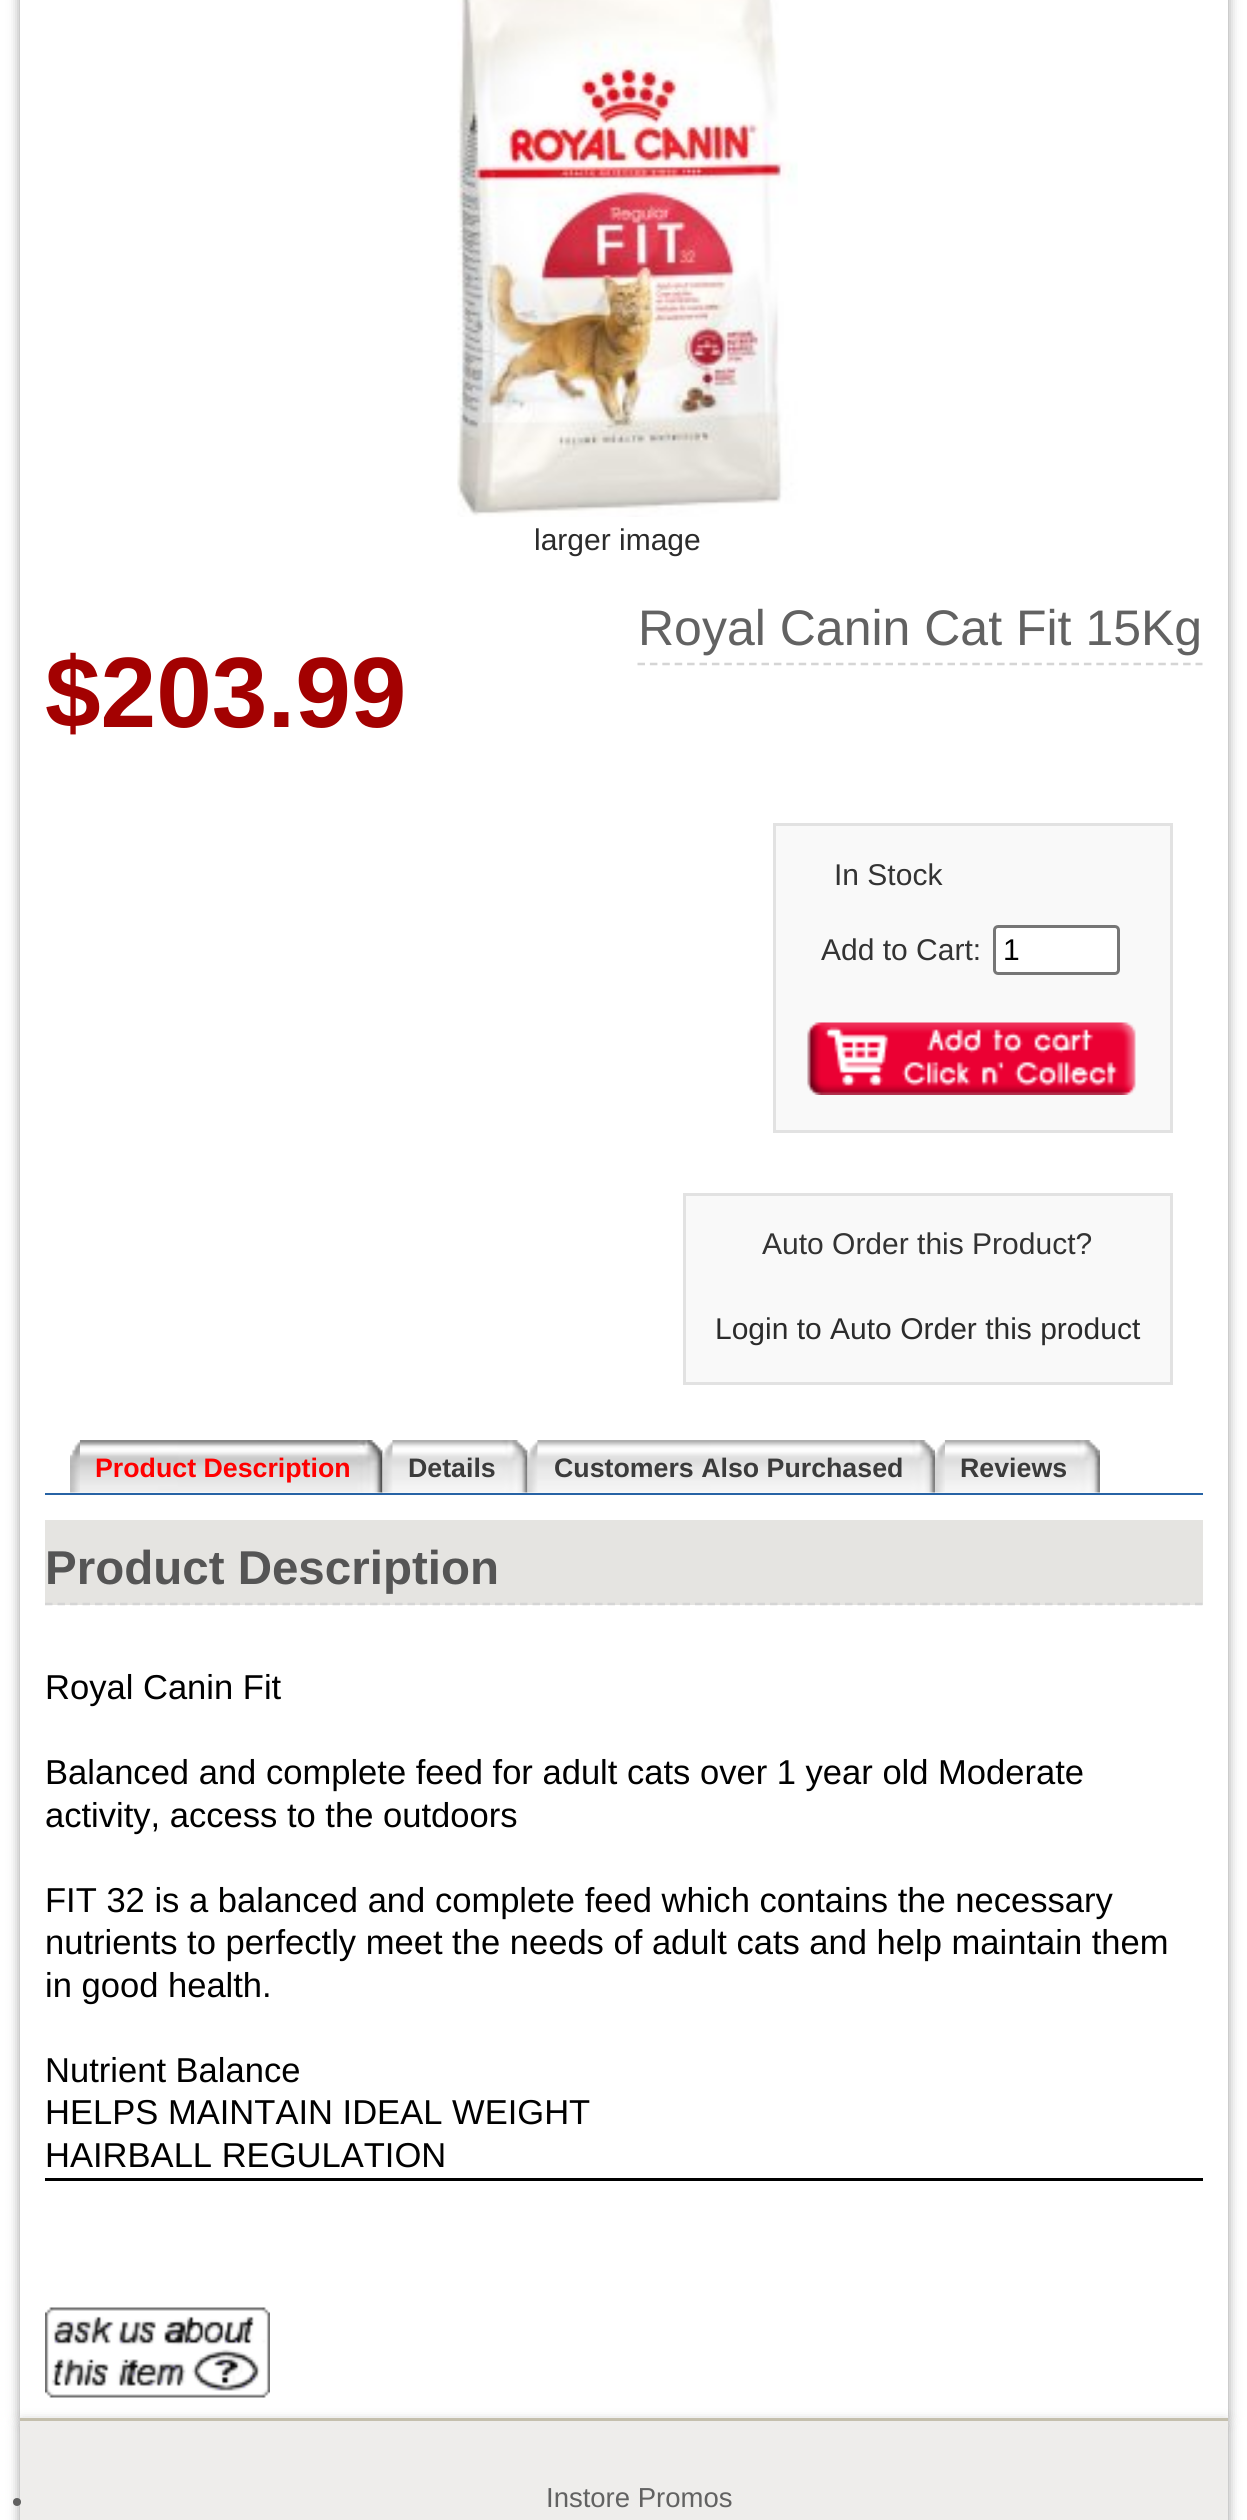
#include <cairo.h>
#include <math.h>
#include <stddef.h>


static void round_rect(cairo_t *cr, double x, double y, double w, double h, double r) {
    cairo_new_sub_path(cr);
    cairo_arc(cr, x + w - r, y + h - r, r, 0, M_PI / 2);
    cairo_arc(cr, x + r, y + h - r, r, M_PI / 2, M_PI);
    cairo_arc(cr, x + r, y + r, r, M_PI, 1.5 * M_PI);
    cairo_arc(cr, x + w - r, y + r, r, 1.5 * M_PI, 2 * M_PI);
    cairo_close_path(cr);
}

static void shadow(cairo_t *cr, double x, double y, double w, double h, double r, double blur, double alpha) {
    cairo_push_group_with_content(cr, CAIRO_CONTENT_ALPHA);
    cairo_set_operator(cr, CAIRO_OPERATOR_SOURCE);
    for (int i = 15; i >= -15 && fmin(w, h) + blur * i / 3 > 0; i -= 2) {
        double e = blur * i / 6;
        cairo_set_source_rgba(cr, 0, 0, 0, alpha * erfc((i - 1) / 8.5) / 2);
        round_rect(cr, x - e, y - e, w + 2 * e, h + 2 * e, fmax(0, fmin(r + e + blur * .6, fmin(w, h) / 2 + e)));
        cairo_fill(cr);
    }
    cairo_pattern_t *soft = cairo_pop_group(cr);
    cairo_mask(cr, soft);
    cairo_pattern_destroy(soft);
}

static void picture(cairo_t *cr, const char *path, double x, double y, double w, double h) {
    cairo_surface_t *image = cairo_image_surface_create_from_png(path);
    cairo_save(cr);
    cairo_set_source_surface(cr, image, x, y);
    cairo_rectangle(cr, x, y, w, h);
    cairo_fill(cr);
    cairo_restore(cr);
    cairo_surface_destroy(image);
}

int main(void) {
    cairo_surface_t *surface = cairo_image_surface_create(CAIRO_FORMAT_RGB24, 1247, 2520);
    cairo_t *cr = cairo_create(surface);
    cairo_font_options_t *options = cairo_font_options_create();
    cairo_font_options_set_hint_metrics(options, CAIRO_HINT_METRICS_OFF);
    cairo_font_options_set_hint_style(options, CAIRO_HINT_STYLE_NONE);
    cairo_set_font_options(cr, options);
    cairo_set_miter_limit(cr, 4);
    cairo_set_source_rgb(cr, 1, 1, 1);
    cairo_paint(cr);
    cairo_set_source_rgb(cr, 0, 0, 0);
    shadow(cr, 20, -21, 1208, 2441, 2.5, 6, 0.4);
    cairo_set_source_rgb(cr, 1, 1, 1);
    cairo_rectangle(cr, 20, 0, 1208, 2418);
    cairo_fill(cr);
    picture(cr, "img1.png", 457, 0, 341, 517);
    cairo_select_font_face(cr, "Liberation Sans", CAIRO_FONT_SLANT_NORMAL, CAIRO_FONT_WEIGHT_NORMAL);
    cairo_set_font_size(cr, 30);
    cairo_set_source_rgb(cr, 0.169, 0.169, 0.169);
    cairo_move_to(cr, 534, 550);
    cairo_show_text(cr, "larger image");
    cairo_new_path(cr);
    cairo_move_to(cr, 637.5, 664);
    cairo_line_to(cr, 1202.5, 664);
    cairo_set_source_rgb(cr, 0.835, 0.835, 0.835);
    cairo_set_line_width(cr, 2.5);
    cairo_set_dash(cr, (double[]){7.5, 4.9}, 2, 0);
    cairo_stroke(cr);
    cairo_set_font_size(cr, 50);
    cairo_set_source_rgb(cr, 0.384, 0.384, 0.384);
    cairo_move_to(cr, 638, 645);
    cairo_show_text(cr, "Royal Canin Cat Fit 15Kg");
    cairo_select_font_face(cr, "Liberation Sans", CAIRO_FONT_SLANT_NORMAL, CAIRO_FONT_WEIGHT_BOLD);
    cairo_set_font_size(cr, 100);
    cairo_set_source_rgb(cr, 0.639, 0.004, 0.004);
    cairo_move_to(cr, 45, 727);
    cairo_show_text(cr, "$203.99");
    cairo_set_source_rgb(cr, 0.973, 0.973, 0.973);
    cairo_rectangle(cr, 774.5, 824.5, 397, 307);
    cairo_fill_preserve(cr);
    cairo_set_source_rgb(cr, 0.886, 0.886, 0.886);
    cairo_set_line_width(cr, 3);
    cairo_set_dash(cr, NULL, 0, 0);
    cairo_stroke(cr);
    cairo_select_font_face(cr, "Liberation Sans", CAIRO_FONT_SLANT_NORMAL, CAIRO_FONT_WEIGHT_NORMAL);
    cairo_set_font_size(cr, 30);
    cairo_set_source_rgb(cr, 0.2, 0.2, 0.2);
    cairo_move_to(cr, 834, 885);
    cairo_show_text(cr, "In Stock");
    cairo_move_to(cr, 821, 960);
    cairo_show_text(cr, "Add to Cart:");
    cairo_set_source_rgb(cr, 1, 1, 1);
    round_rect(cr, 994.5, 926.5, 124, 47, 3.5);
    cairo_fill_preserve(cr);
    cairo_set_source_rgb(cr, 0.463, 0.463, 0.463);
    cairo_stroke(cr);
    cairo_set_source_rgb(cr, 0, 0, 0);
    cairo_move_to(cr, 1003, 960);
    cairo_show_text(cr, "1");
    picture(cr, "img2.png", 807, 1022, 329, 73);
    cairo_set_source_rgb(cr, 0.973, 0.973, 0.973);
    cairo_rectangle(cr, 684.5, 1194.5, 487, 189);
    cairo_fill_preserve(cr);
    cairo_set_source_rgb(cr, 0.886, 0.886, 0.886);
    cairo_stroke(cr);
    cairo_set_source_rgb(cr, 0.2, 0.2, 0.2);
    cairo_move_to(cr, 762, 1254);
    cairo_show_text(cr, "Auto Order this Product?");
    cairo_set_source_rgb(cr, 0.169, 0.169, 0.169);
    cairo_move_to(cr, 715, 1339);
    cairo_show_text(cr, "Login to Auto Order this product");
    cairo_set_source_rgb(cr, 0.153, 0.388, 0.647);
    cairo_rectangle(cr, 45, 1493, 1158, 2);
    cairo_fill(cr);
    picture(cr, "img3.png", 70, 1440, 25, 53);
    picture(cr, "img4.png", 80, 1440, 303, 53);
    cairo_select_font_face(cr, "Liberation Sans", CAIRO_FONT_SLANT_NORMAL, CAIRO_FONT_WEIGHT_BOLD);
    cairo_set_font_size(cr, 26.75);
    cairo_set_source_rgb(cr, 1, 0, 0);
    cairo_move_to(cr, 95, 1477);
    cairo_show_text(cr, "Product Description");
    picture(cr, "img5.png", 382, 1440, 26, 53);
    picture(cr, "img6.png", 392, 1440, 136, 53);
    cairo_set_source_rgb(cr, 0.231, 0.231, 0.231);
    cairo_move_to(cr, 408, 1477);
    cairo_show_text(cr, "Details");
    picture(cr, "img7.png", 527, 1440, 26, 53);
    picture(cr, "img8.png", 537, 1440, 398, 53);
    cairo_move_to(cr, 554, 1477);
    cairo_show_text(cr, "Customers Also Purchased");
    picture(cr, "img9.png", 935, 1440, 25, 53);
    picture(cr, "img10.png", 945, 1440, 155, 53);
    cairo_move_to(cr, 960, 1477);
    cairo_show_text(cr, "Reviews");
    cairo_set_source_rgb(cr, 0, 0, 0);
    cairo_rectangle(cr, 45, 2178, 1158, 3);
    cairo_fill(cr);
    cairo_set_source_rgb(cr, 0.898, 0.894, 0.882);
    cairo_rectangle(cr, 45, 1520, 1158, 85);
    cairo_fill(cr);
    cairo_new_path(cr);
    cairo_move_to(cr, 45, 1604);
    cairo_line_to(cr, 1202.5, 1604);
    cairo_set_source_rgb(cr, 0.835, 0.835, 0.835);
    cairo_set_line_width(cr, 2.5);
    cairo_set_dash(cr, (double[]){7.5, 5}, 2, 0);
    cairo_stroke(cr);
    cairo_set_font_size(cr, 47.5);
    cairo_set_source_rgb(cr, 0.333, 0.333, 0.333);
    cairo_move_to(cr, 45, 1584);
    cairo_show_text(cr, "Product Description");
    cairo_select_font_face(cr, "Liberation Sans", CAIRO_FONT_SLANT_NORMAL, CAIRO_FONT_WEIGHT_NORMAL);
    cairo_set_font_size(cr, 34.55);
    cairo_set_source_rgb(cr, 0, 0, 0);
    cairo_move_to(cr, 45, 1699);
    cairo_show_text(cr, "Royal Canin Fit");
    cairo_move_to(cr, 45, 1784);
    cairo_show_text(cr, "Balanced and complete feed for adult cats over 1 year old Moderate");
    cairo_move_to(cr, 45, 1827);
    cairo_show_text(cr, "activity, access to the outdoors");
    cairo_move_to(cr, 45, 1912);
    cairo_show_text(cr, "FIT 32 is a balanced and complete feed which contains the necessary");
    cairo_move_to(cr, 45, 1954);
    cairo_show_text(cr, "nutrients to perfectly meet the needs of adult cats and help maintain them");
    cairo_move_to(cr, 45, 1997);
    cairo_show_text(cr, "in good health.");
    cairo_move_to(cr, 45, 2082);
    cairo_show_text(cr, "Nutrient Balance");
    cairo_move_to(cr, 45, 2124);
    cairo_show_text(cr, "HELPS MAINTAIN IDEAL WEIGHT");
    cairo_move_to(cr, 45, 2167);
    cairo_show_text(cr, "HAIRBALL REGULATION");
    picture(cr, "img11.png", 45, 2307, 225, 91);
    cairo_set_source_rgb(cr, 0, 0, 0);
    shadow(cr, 20, 2423, 1208, 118, 2.5, 6, 0.4);
    cairo_set_source_rgb(cr, 0.933, 0.929, 0.918);
    cairo_rectangle(cr, 20, 2421, 1208, 99);
    cairo_fill(cr);
    cairo_set_source_rgb(cr, 0.769, 0.749, 0.678);
    cairo_rectangle(cr, 20, 2418, 1208, 3);
    cairo_fill(cr);
    cairo_set_source_rgb(cr, 0.376, 0.376, 0.376);
    cairo_arc(cr, 17, 2502, 4, 0, 2 * M_PI);
    cairo_fill(cr);
    cairo_set_font_size(cr, 27.5);
    cairo_set_source_rgb(cr, 0.384, 0.384, 0.384);
    cairo_move_to(cr, 546, 2507);
    cairo_show_text(cr, "Instore Promos");
    cairo_surface_write_to_png(surface, "page.png");
    cairo_font_options_destroy(options);
    cairo_destroy(cr);
    cairo_surface_destroy(surface);
    return 0;
}
